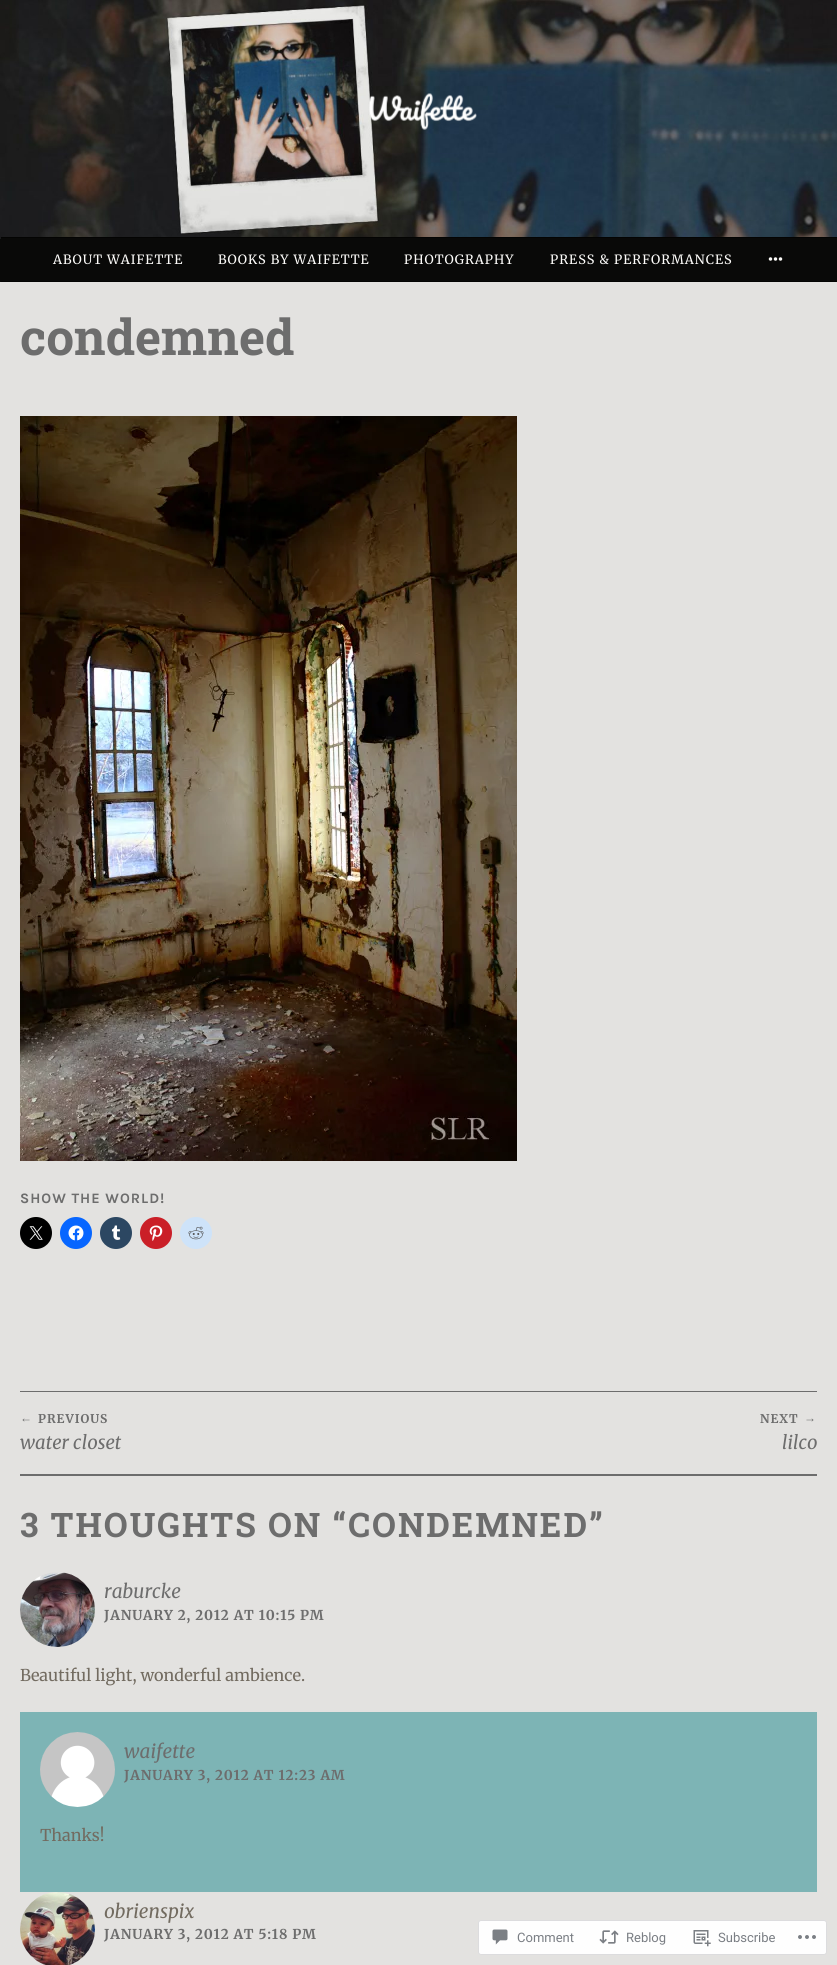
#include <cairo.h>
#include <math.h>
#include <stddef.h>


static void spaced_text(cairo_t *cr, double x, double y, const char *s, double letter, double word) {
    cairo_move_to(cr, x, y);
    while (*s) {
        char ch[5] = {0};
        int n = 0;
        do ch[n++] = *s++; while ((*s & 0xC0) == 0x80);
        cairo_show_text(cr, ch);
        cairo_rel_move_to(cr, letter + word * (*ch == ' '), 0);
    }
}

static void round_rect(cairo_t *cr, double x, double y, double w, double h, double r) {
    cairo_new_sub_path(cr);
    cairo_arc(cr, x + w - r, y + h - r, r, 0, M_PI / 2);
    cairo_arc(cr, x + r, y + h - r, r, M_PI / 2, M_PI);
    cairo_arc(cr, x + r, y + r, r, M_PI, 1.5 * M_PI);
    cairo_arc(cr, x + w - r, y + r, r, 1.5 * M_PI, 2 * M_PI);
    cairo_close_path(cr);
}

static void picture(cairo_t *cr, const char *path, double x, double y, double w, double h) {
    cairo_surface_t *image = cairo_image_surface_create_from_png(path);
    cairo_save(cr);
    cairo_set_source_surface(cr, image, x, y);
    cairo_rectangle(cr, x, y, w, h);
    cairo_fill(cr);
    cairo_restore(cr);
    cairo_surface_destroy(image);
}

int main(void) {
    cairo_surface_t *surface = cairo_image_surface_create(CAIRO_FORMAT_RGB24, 837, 1965);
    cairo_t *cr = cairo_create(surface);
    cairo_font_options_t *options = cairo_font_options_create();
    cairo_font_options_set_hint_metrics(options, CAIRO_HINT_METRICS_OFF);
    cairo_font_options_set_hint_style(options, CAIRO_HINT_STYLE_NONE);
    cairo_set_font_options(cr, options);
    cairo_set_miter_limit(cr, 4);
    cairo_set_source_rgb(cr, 0.89, 0.886, 0.878);
    cairo_paint(cr);
    cairo_set_source_rgb(cr, 0.039, 0.039, 0.035);
    cairo_rectangle(cr, 0, 239, 1, 43);
    cairo_fill(cr);
    picture(cr, "img1.png", 0, 0, 837, 239);
    picture(cr, "img2.png", 369, 93, 108, 37);
    cairo_rectangle(cr, 1, 238, 836, 43);
    cairo_fill(cr);
    cairo_set_source_rgb(cr, 0.016, 0.016, 0.012);
    cairo_rectangle(cr, 1, 237, 836, 1);
    cairo_fill(cr);
    cairo_rectangle(cr, 1, 281, 836, 1);
    cairo_fill(cr);
    cairo_select_font_face(cr, "Merriweather", CAIRO_FONT_SLANT_NORMAL, CAIRO_FONT_WEIGHT_NORMAL);
    cairo_set_font_size(cr, 12.75);
    cairo_set_source_rgb(cr, 0.988, 0.984, 0.976);
    spaced_text(cr, 53, 264, "ABOUT WAIFETTE", 1, 0);
    spaced_text(cr, 218, 264, "BOOKS BY WAIFETTE", 1, 0);
    spaced_text(cr, 404, 264, "PHOTOGRAPHY", 1, 0);
    spaced_text(cr, 550, 264, "PRESS & PERFORMANCES", 1, 0);
    picture(cr, "img3.png", 768, 257, 15, 4);
    cairo_select_font_face(cr, "Roboto Slab", CAIRO_FONT_SLANT_NORMAL, CAIRO_FONT_WEIGHT_BOLD);
    cairo_set_font_size(cr, 49.5);
    cairo_set_source_rgb(cr, 0.427, 0.427, 0.427);
    cairo_move_to(cr, 20, 355);
    cairo_show_text(cr, "condemned");
    picture(cr, "img4.png", 20, 416, 497, 745);
    cairo_select_font_face(cr, "Karla", CAIRO_FONT_SLANT_NORMAL, CAIRO_FONT_WEIGHT_BOLD);
    cairo_set_font_size(cr, 14.4);
    spaced_text(cr, 20, 1203, "SHOW THE WORLD!", 1, 0);
    cairo_set_source_rgb(cr, 0, 0, 0);
    cairo_new_path(cr);
    cairo_arc(cr, 36, 1233, 16, 0, 2 * M_PI);
    cairo_fill(cr);
    picture(cr, "img5.png", 29, 1226, 14, 14);
    cairo_set_source_rgb(cr, 0.031, 0.4, 1);
    cairo_arc(cr, 76, 1233, 16, 0, 2 * M_PI);
    cairo_fill(cr);
    picture(cr, "img6.png", 68, 1225, 16, 16);
    cairo_set_source_rgb(cr, 0.173, 0.278, 0.384);
    cairo_arc(cr, 116, 1233, 16, 0, 2 * M_PI);
    cairo_fill(cr);
    picture(cr, "img7.png", 111, 1225, 10, 15);
    cairo_set_source_rgb(cr, 0.792, 0.122, 0.153);
    cairo_arc(cr, 156, 1233, 16, 0, 2 * M_PI);
    cairo_fill(cr);
    picture(cr, "img8.png", 149, 1225, 14, 16);
    cairo_set_source_rgb(cr, 0.808, 0.89, 0.973);
    cairo_arc(cr, 196, 1233, 16, 0, 2 * M_PI);
    cairo_fill(cr);
    picture(cr, "img9.png", 188, 1226, 16, 14);
    cairo_set_source_rgb(cr, 0.427, 0.427, 0.427);
    cairo_rectangle(cr, 20, 1391, 797, 1);
    cairo_fill(cr);
    cairo_rectangle(cr, 20, 1474, 797, 2);
    cairo_fill(cr);
    cairo_select_font_face(cr, "Liberation Serif", CAIRO_FONT_SLANT_NORMAL, CAIRO_FONT_WEIGHT_NORMAL);
    cairo_set_font_size(cr, 12);
    spaced_text(cr, 20, 1422, "←", 1, 0);
    cairo_select_font_face(cr, "Merriweather", CAIRO_FONT_SLANT_NORMAL, CAIRO_FONT_WEIGHT_BOLD);
    spaced_text(cr, 38, 1423, "PREVIOUS", 1, 0);
    cairo_select_font_face(cr, "Merriweather", CAIRO_FONT_SLANT_ITALIC, CAIRO_FONT_WEIGHT_NORMAL);
    cairo_set_font_size(cr, 18.5);
    cairo_move_to(cr, 20, 1449);
    cairo_show_text(cr, "water closet");
    cairo_select_font_face(cr, "Merriweather", CAIRO_FONT_SLANT_NORMAL, CAIRO_FONT_WEIGHT_BOLD);
    cairo_set_font_size(cr, 12);
    spaced_text(cr, 760, 1423, "NEXT", 1, 0);
    cairo_select_font_face(cr, "Liberation Serif", CAIRO_FONT_SLANT_NORMAL, CAIRO_FONT_WEIGHT_NORMAL);
    spaced_text(cr, 804, 1422, "→", 1, 0);
    cairo_select_font_face(cr, "Merriweather", CAIRO_FONT_SLANT_ITALIC, CAIRO_FONT_WEIGHT_NORMAL);
    cairo_set_font_size(cr, 18.5);
    cairo_move_to(cr, 782, 1449);
    cairo_show_text(cr, "lilco");
    cairo_select_font_face(cr, "Roboto Slab", CAIRO_FONT_SLANT_NORMAL, CAIRO_FONT_WEIGHT_BOLD);
    cairo_set_font_size(cr, 33.75);
    spaced_text(cr, 20, 1537, "3 THOUGHTS ON “CONDEMNED”", 2, 0);
    picture(cr, "img10.png", 20, 1572, 75, 75);
    cairo_select_font_face(cr, "Merriweather", CAIRO_FONT_SLANT_ITALIC, CAIRO_FONT_WEIGHT_NORMAL);
    cairo_set_font_size(cr, 19);
    cairo_move_to(cr, 104, 1598);
    cairo_show_text(cr, "raburcke");
    cairo_select_font_face(cr, "Merriweather", CAIRO_FONT_SLANT_NORMAL, CAIRO_FONT_WEIGHT_BOLD);
    cairo_set_font_size(cr, 13.6);
    spaced_text(cr, 104, 1620, "JANUARY 2, 2012 AT 10:15 PM", 0.8, 0);
    cairo_select_font_face(cr, "Merriweather", CAIRO_FONT_SLANT_NORMAL, CAIRO_FONT_WEIGHT_NORMAL);
    cairo_set_font_size(cr, 16.25);
    cairo_set_source_rgb(cr, 0.447, 0.42, 0.376);
    cairo_move_to(cr, 20, 1681);
    cairo_show_text(cr, "Beautiful light, wonderful ambience.");
    cairo_set_source_rgb(cr, 0.49, 0.706, 0.71);
    cairo_rectangle(cr, 20, 1712, 797, 180);
    cairo_fill(cr);
    picture(cr, "img11.png", 40, 1732, 75, 75);
    cairo_select_font_face(cr, "Merriweather", CAIRO_FONT_SLANT_ITALIC, CAIRO_FONT_WEIGHT_NORMAL);
    cairo_set_font_size(cr, 19);
    cairo_set_source_rgb(cr, 0.427, 0.427, 0.427);
    cairo_move_to(cr, 124, 1758);
    cairo_show_text(cr, "waifette");
    cairo_select_font_face(cr, "Merriweather", CAIRO_FONT_SLANT_NORMAL, CAIRO_FONT_WEIGHT_BOLD);
    cairo_set_font_size(cr, 13.6);
    spaced_text(cr, 124, 1780, "JANUARY 3, 2012 AT 12:23 AM", 0.8, 0);
    cairo_select_font_face(cr, "Merriweather", CAIRO_FONT_SLANT_NORMAL, CAIRO_FONT_WEIGHT_NORMAL);
    cairo_set_font_size(cr, 16.25);
    cairo_set_source_rgb(cr, 0.447, 0.42, 0.376);
    cairo_move_to(cr, 40, 1841);
    cairo_show_text(cr, "Thanks!");
    picture(cr, "img12.png", 20, 1892, 75, 73);
    cairo_select_font_face(cr, "Merriweather", CAIRO_FONT_SLANT_ITALIC, CAIRO_FONT_WEIGHT_NORMAL);
    cairo_set_font_size(cr, 19);
    cairo_move_to(cr, 104, 1918);
    cairo_show_text(cr, "obrienspix");
    cairo_select_font_face(cr, "Merriweather", CAIRO_FONT_SLANT_NORMAL, CAIRO_FONT_WEIGHT_BOLD);
    cairo_set_font_size(cr, 13.6);
    cairo_set_source_rgb(cr, 0.427, 0.427, 0.427);
    spaced_text(cr, 104, 1939, "JANUARY 3, 2012 AT 5:18 PM", 0.8, 0);
    cairo_set_source_rgb(cr, 0.996, 0.996, 0.996);
    round_rect(cr, 478.5, 1920.5, 348, 34, 2.5);
    cairo_fill_preserve(cr);
    cairo_set_source_rgb(cr, 0.863, 0.863, 0.871);
    cairo_set_line_width(cr, 1);
    cairo_stroke(cr);
    picture(cr, "img13.png", 492, 1929, 16, 16);
    cairo_select_font_face(cr, "Roboto", CAIRO_FONT_SLANT_NORMAL, CAIRO_FONT_WEIGHT_NORMAL);
    cairo_set_font_size(cr, 13);
    cairo_set_source_rgb(cr, 0.478, 0.494, 0.518);
    cairo_move_to(cr, 517, 1942);
    cairo_show_text(cr, "Comment");
    picture(cr, "img14.png", 599, 1930, 20, 14);
    cairo_move_to(cr, 626, 1942);
    cairo_show_text(cr, "Reblog");
    picture(cr, "img15.png", 693, 1930, 18, 17);
    cairo_move_to(cr, 718, 1942);
    cairo_show_text(cr, "Subscribe");
    picture(cr, "img16.png", 798, 1935, 18, 4);
    cairo_surface_write_to_png(surface, "page.png");
    cairo_font_options_destroy(options);
    cairo_destroy(cr);
    cairo_surface_destroy(surface);
    return 0;
}
